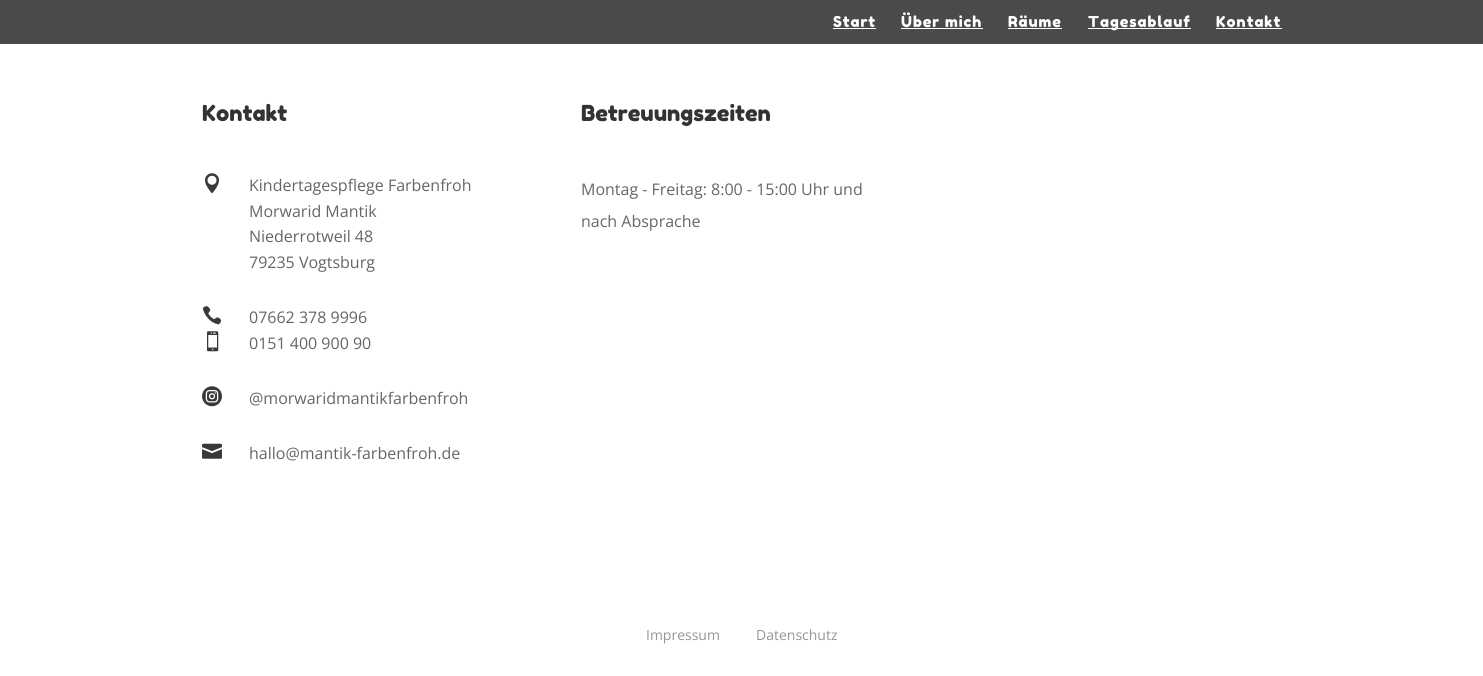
#include <cairo.h>
#include <math.h>
#include <stddef.h>


static void spaced_text(cairo_t *cr, double x, double y, const char *s, double letter, double word) {
    cairo_move_to(cr, x, y);
    while (*s) {
        char ch[5] = {0};
        int n = 0;
        do ch[n++] = *s++; while ((*s & 0xC0) == 0x80);
        cairo_show_text(cr, ch);
        cairo_rel_move_to(cr, letter + word * (*ch == ' '), 0);
    }
}

static void picture(cairo_t *cr, const char *path, double x, double y, double w, double h) {
    cairo_surface_t *image = cairo_image_surface_create_from_png(path);
    cairo_save(cr);
    cairo_set_source_surface(cr, image, x, y);
    cairo_rectangle(cr, x, y, w, h);
    cairo_fill(cr);
    cairo_restore(cr);
    cairo_surface_destroy(image);
}

int main(void) {
    cairo_surface_t *surface = cairo_image_surface_create(CAIRO_FORMAT_RGB24, 1483, 676);
    cairo_t *cr = cairo_create(surface);
    cairo_font_options_t *options = cairo_font_options_create();
    cairo_font_options_set_hint_metrics(options, CAIRO_HINT_METRICS_OFF);
    cairo_font_options_set_hint_style(options, CAIRO_HINT_STYLE_NONE);
    cairo_set_font_options(cr, options);
    cairo_set_miter_limit(cr, 4);
    cairo_set_source_rgb(cr, 1, 1, 1);
    cairo_paint(cr);
    cairo_set_source_rgb(cr, 0.29, 0.29, 0.29);
    cairo_rectangle(cr, 0, 0, 1483, 44);
    cairo_fill(cr);
    cairo_select_font_face(cr, "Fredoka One", CAIRO_FONT_SLANT_NORMAL, CAIRO_FONT_WEIGHT_NORMAL);
    cairo_set_font_size(cr, 15);
    cairo_set_source_rgb(cr, 1, 1, 1);
    spaced_text(cr, 833, 27, "Start", 1, 0);
    cairo_rectangle(cr, 833, 28, 43, 1);
    cairo_fill(cr);
    spaced_text(cr, 901, 27, "Über mich", 1, 0);
    cairo_rectangle(cr, 901, 28, 82, 1);
    cairo_fill(cr);
    spaced_text(cr, 1008, 27, "Räume", 1, 0);
    cairo_rectangle(cr, 1008, 28, 54, 1);
    cairo_fill(cr);
    cairo_rectangle(cr, 1088, 28, 103, 1);
    cairo_fill(cr);
    spaced_text(cr, 1088, 27, "Tagesablauf", 1, 0);
    spaced_text(cr, 1216, 27, "Kontakt", 1, 0);
    cairo_rectangle(cr, 1216, 28, 66, 1);
    cairo_fill(cr);
    cairo_set_font_size(cr, 22);
    cairo_set_source_rgb(cr, 0.2, 0.2, 0.2);
    cairo_move_to(cr, 202, 121);
    cairo_show_text(cr, "Kontakt");
    picture(cr, "img1.png", 205, 173, 14, 21);
    cairo_select_font_face(cr, "Open Sans", CAIRO_FONT_SLANT_NORMAL, CAIRO_FONT_WEIGHT_NORMAL);
    cairo_set_font_size(cr, 16);
    cairo_set_source_rgb(cr, 0.4, 0.4, 0.4);
    cairo_move_to(cr, 249, 191);
    cairo_show_text(cr, "Kindertagespflege Farbenfroh");
    cairo_move_to(cr, 249, 217);
    cairo_show_text(cr, "Morwarid Mantik");
    cairo_move_to(cr, 249, 242);
    cairo_show_text(cr, "Niederrotweil 48");
    cairo_move_to(cr, 249, 268);
    cairo_show_text(cr, "79235 Vogtsburg");
    picture(cr, "img2.png", 202, 306, 20, 19);
    cairo_move_to(cr, 249, 323);
    cairo_show_text(cr, "07662 378 9996");
    picture(cr, "img3.png", 207, 331, 12, 21);
    cairo_move_to(cr, 249, 349);
    cairo_show_text(cr, "0151 400 900 90");
    picture(cr, "img4.png", 202, 386, 20, 21);
    cairo_move_to(cr, 249, 404);
    cairo_show_text(cr, "@morwaridmantikfarbenfroh");
    picture(cr, "img5.png", 202, 443, 20, 16);
    cairo_move_to(cr, 249, 459);
    cairo_show_text(cr, "hallo@mantik-farbenfroh.de");
    cairo_select_font_face(cr, "Fredoka One", CAIRO_FONT_SLANT_NORMAL, CAIRO_FONT_WEIGHT_NORMAL);
    cairo_set_font_size(cr, 22);
    cairo_set_source_rgb(cr, 0.2, 0.2, 0.2);
    cairo_move_to(cr, 581, 121);
    cairo_show_text(cr, "Betreuungszeiten");
    cairo_select_font_face(cr, "Open Sans", CAIRO_FONT_SLANT_NORMAL, CAIRO_FONT_WEIGHT_NORMAL);
    cairo_set_font_size(cr, 16);
    cairo_set_source_rgb(cr, 0.4, 0.4, 0.4);
    cairo_move_to(cr, 581, 195);
    cairo_show_text(cr, "Montag - Freitag: 8:00 - 15:00 Uhr und");
    cairo_move_to(cr, 581, 227);
    cairo_show_text(cr, "nach Absprache");
    cairo_set_font_size(cr, 14);
    cairo_set_source_rgb(cr, 0.588, 0.588, 0.588);
    cairo_move_to(cr, 646, 640);
    cairo_show_text(cr, "Impressum");
    cairo_move_to(cr, 756, 640);
    cairo_show_text(cr, "Datenschutz");
    cairo_surface_write_to_png(surface, "page.png");
    cairo_font_options_destroy(options);
    cairo_destroy(cr);
    cairo_surface_destroy(surface);
    return 0;
}
